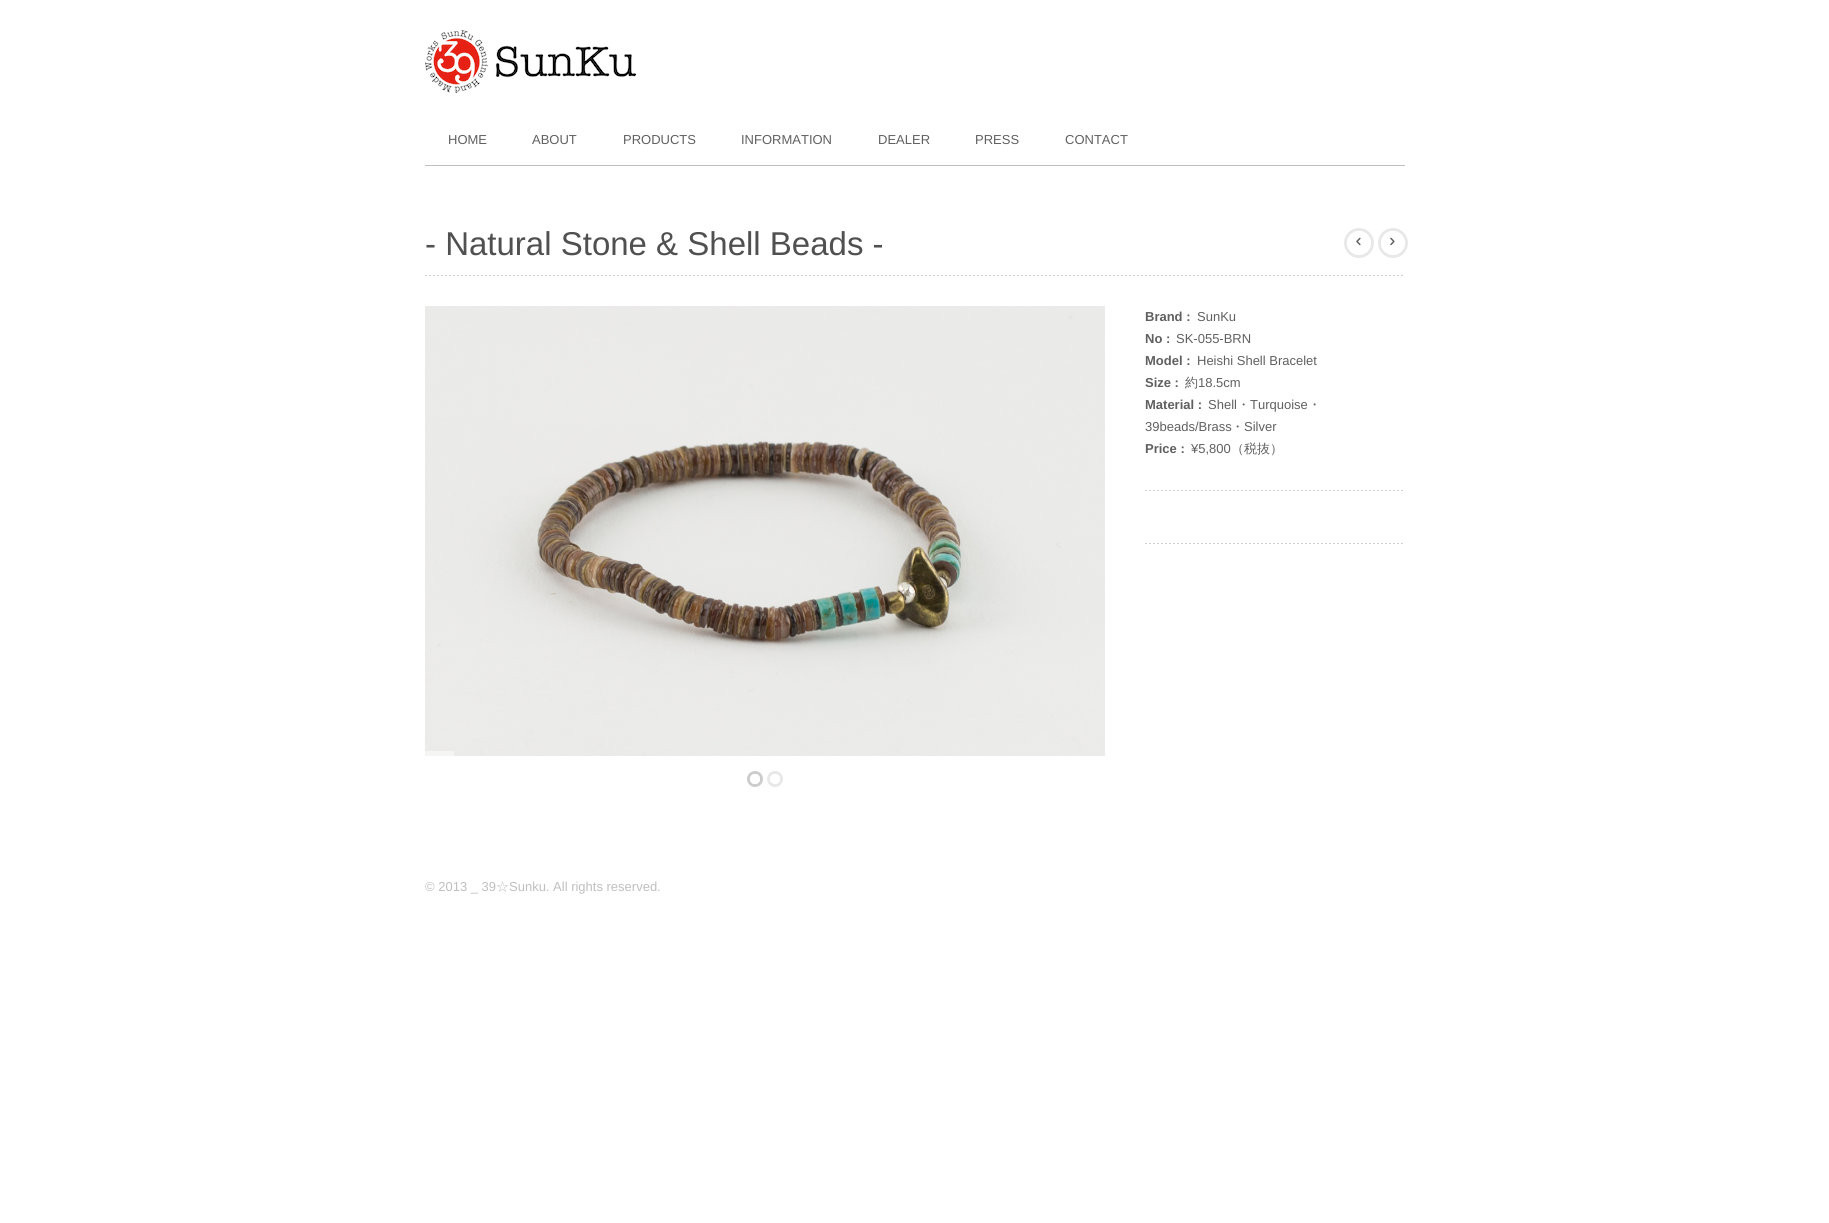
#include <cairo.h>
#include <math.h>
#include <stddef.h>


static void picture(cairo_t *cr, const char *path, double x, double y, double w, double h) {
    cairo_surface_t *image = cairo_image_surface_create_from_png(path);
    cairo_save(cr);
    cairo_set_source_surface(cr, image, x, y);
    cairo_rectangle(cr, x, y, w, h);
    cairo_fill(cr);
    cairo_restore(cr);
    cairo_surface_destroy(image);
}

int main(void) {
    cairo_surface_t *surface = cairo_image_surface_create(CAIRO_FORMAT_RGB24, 1829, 1223);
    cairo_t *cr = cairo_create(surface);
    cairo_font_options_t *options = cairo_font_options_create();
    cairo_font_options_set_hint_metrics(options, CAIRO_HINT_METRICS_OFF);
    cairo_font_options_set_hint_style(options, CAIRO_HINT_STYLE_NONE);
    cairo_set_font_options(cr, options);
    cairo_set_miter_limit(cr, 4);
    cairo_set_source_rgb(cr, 1, 1, 1);
    cairo_paint(cr);
    picture(cr, "img1.png", 425, 30, 211, 63);
    cairo_set_source_rgb(cr, 0.749, 0.749, 0.749);
    cairo_rectangle(cr, 425, 165, 980, 1);
    cairo_fill(cr);
    cairo_select_font_face(cr, "Liberation Sans", CAIRO_FONT_SLANT_NORMAL, CAIRO_FONT_WEIGHT_NORMAL);
    cairo_set_font_size(cr, 13);
    cairo_set_source_rgb(cr, 0.376, 0.376, 0.376);
    cairo_move_to(cr, 448, 144);
    cairo_show_text(cr, "HOME");
    cairo_move_to(cr, 532, 144);
    cairo_show_text(cr, "ABOUT");
    cairo_move_to(cr, 623, 144);
    cairo_show_text(cr, "PRODUCTS");
    cairo_move_to(cr, 741, 144);
    cairo_show_text(cr, "INFORMATION");
    cairo_move_to(cr, 878, 144);
    cairo_show_text(cr, "DEALER");
    cairo_move_to(cr, 975, 144);
    cairo_show_text(cr, "PRESS");
    cairo_move_to(cr, 1065, 144);
    cairo_show_text(cr, "CONTACT");
    picture(cr, "img2.png", 425, 275, 978, 1);
    cairo_set_font_size(cr, 33);
    cairo_set_source_rgb(cr, 0.314, 0.314, 0.314);
    cairo_move_to(cr, 425, 255);
    cairo_show_text(cr, "- Natural Stone & Shell Beads -");
    cairo_new_path(cr);
    cairo_arc(cr, 1359, 243, 13.5, 0, 2 * M_PI);
    cairo_set_source_rgb(cr, 0.91, 0.91, 0.91);
    cairo_set_line_width(cr, 3);
    cairo_stroke(cr);
    cairo_set_source_rgb(cr, 1, 1, 1);
    cairo_arc(cr, 1359, 243, 12, 0, 2 * M_PI);
    cairo_fill(cr);
    picture(cr, "img3.png", 1356, 237, 5, 9);
    cairo_arc(cr, 1393, 243, 13.5, 0, 2 * M_PI);
    cairo_set_source_rgb(cr, 0.91, 0.91, 0.91);
    cairo_stroke(cr);
    cairo_set_source_rgb(cr, 1, 1, 1);
    cairo_arc(cr, 1393, 243, 12, 0, 2 * M_PI);
    cairo_fill(cr);
    picture(cr, "img4.png", 1390, 237, 5, 9);
    picture(cr, "img5.png", 425, 306, 680, 450);
    cairo_set_source_rgba(cr, 1, 1, 1, 0.5);
    cairo_rectangle(cr, 425, 751, 29, 5);
    cairo_fill(cr);
    cairo_arc(cr, 755, 779, 6.5, 0, 2 * M_PI);
    cairo_set_source_rgb(cr, 0.8, 0.8, 0.8);
    cairo_stroke(cr);
    cairo_set_source_rgb(cr, 1, 1, 1);
    cairo_arc(cr, 755, 779, 5, 0, 2 * M_PI);
    cairo_fill(cr);
    cairo_arc(cr, 775, 779, 6.5, 0, 2 * M_PI);
    cairo_set_source_rgb(cr, 0.91, 0.91, 0.91);
    cairo_stroke(cr);
    cairo_set_source_rgb(cr, 1, 1, 1);
    cairo_arc(cr, 775, 779, 5, 0, 2 * M_PI);
    cairo_fill(cr);
    cairo_select_font_face(cr, "Liberation Sans", CAIRO_FONT_SLANT_NORMAL, CAIRO_FONT_WEIGHT_BOLD);
    cairo_set_font_size(cr, 13);
    cairo_set_source_rgb(cr, 0.376, 0.376, 0.376);
    cairo_move_to(cr, 1145, 321);
    cairo_show_text(cr, "Brand :");
    cairo_select_font_face(cr, "Liberation Sans", CAIRO_FONT_SLANT_NORMAL, CAIRO_FONT_WEIGHT_NORMAL);
    cairo_move_to(cr, 1197, 321);
    cairo_show_text(cr, "SunKu");
    cairo_select_font_face(cr, "Liberation Sans", CAIRO_FONT_SLANT_NORMAL, CAIRO_FONT_WEIGHT_BOLD);
    cairo_move_to(cr, 1145, 343);
    cairo_show_text(cr, "No :");
    cairo_select_font_face(cr, "Liberation Sans", CAIRO_FONT_SLANT_NORMAL, CAIRO_FONT_WEIGHT_NORMAL);
    cairo_move_to(cr, 1176, 343);
    cairo_show_text(cr, "SK-055-BRN");
    cairo_select_font_face(cr, "Liberation Sans", CAIRO_FONT_SLANT_NORMAL, CAIRO_FONT_WEIGHT_BOLD);
    cairo_move_to(cr, 1145, 365);
    cairo_show_text(cr, "Model :");
    cairo_select_font_face(cr, "Liberation Sans", CAIRO_FONT_SLANT_NORMAL, CAIRO_FONT_WEIGHT_NORMAL);
    cairo_move_to(cr, 1197, 365);
    cairo_show_text(cr, "Heishi Shell Bracelet");
    cairo_select_font_face(cr, "Liberation Sans", CAIRO_FONT_SLANT_NORMAL, CAIRO_FONT_WEIGHT_BOLD);
    cairo_move_to(cr, 1145, 387);
    cairo_show_text(cr, "Size :");
    cairo_select_font_face(cr, "WenQuanYi Zen Hei Medium", CAIRO_FONT_SLANT_NORMAL, CAIRO_FONT_WEIGHT_NORMAL);
    cairo_move_to(cr, 1185, 387);
    cairo_show_text(cr, "約");
    cairo_select_font_face(cr, "Liberation Sans", CAIRO_FONT_SLANT_NORMAL, CAIRO_FONT_WEIGHT_NORMAL);
    cairo_move_to(cr, 1198, 387);
    cairo_show_text(cr, "18.5cm");
    cairo_select_font_face(cr, "Liberation Sans", CAIRO_FONT_SLANT_NORMAL, CAIRO_FONT_WEIGHT_BOLD);
    cairo_move_to(cr, 1145, 409);
    cairo_show_text(cr, "Material :");
    cairo_select_font_face(cr, "Liberation Sans", CAIRO_FONT_SLANT_NORMAL, CAIRO_FONT_WEIGHT_NORMAL);
    cairo_move_to(cr, 1208, 409);
    cairo_show_text(cr, "Shell");
    cairo_select_font_face(cr, "WenQuanYi Zen Hei Medium", CAIRO_FONT_SLANT_NORMAL, CAIRO_FONT_WEIGHT_NORMAL);
    cairo_move_to(cr, 1237, 409);
    cairo_show_text(cr, "・");
    cairo_select_font_face(cr, "Liberation Sans", CAIRO_FONT_SLANT_NORMAL, CAIRO_FONT_WEIGHT_NORMAL);
    cairo_move_to(cr, 1250, 409);
    cairo_show_text(cr, "Turquoise");
    cairo_select_font_face(cr, "WenQuanYi Zen Hei Medium", CAIRO_FONT_SLANT_NORMAL, CAIRO_FONT_WEIGHT_NORMAL);
    cairo_move_to(cr, 1308, 409);
    cairo_show_text(cr, "・");
    cairo_select_font_face(cr, "Liberation Sans", CAIRO_FONT_SLANT_NORMAL, CAIRO_FONT_WEIGHT_NORMAL);
    cairo_move_to(cr, 1145, 431);
    cairo_show_text(cr, "39beads/Brass");
    cairo_select_font_face(cr, "WenQuanYi Zen Hei Medium", CAIRO_FONT_SLANT_NORMAL, CAIRO_FONT_WEIGHT_NORMAL);
    cairo_move_to(cr, 1231, 431);
    cairo_show_text(cr, "・");
    cairo_select_font_face(cr, "Liberation Sans", CAIRO_FONT_SLANT_NORMAL, CAIRO_FONT_WEIGHT_NORMAL);
    cairo_move_to(cr, 1244, 431);
    cairo_show_text(cr, "Silver");
    cairo_select_font_face(cr, "Liberation Sans", CAIRO_FONT_SLANT_NORMAL, CAIRO_FONT_WEIGHT_BOLD);
    cairo_move_to(cr, 1145, 453);
    cairo_show_text(cr, "Price :");
    cairo_select_font_face(cr, "Liberation Sans", CAIRO_FONT_SLANT_NORMAL, CAIRO_FONT_WEIGHT_NORMAL);
    cairo_move_to(cr, 1191, 453);
    cairo_show_text(cr, "¥5,800");
    cairo_select_font_face(cr, "WenQuanYi Zen Hei Medium", CAIRO_FONT_SLANT_NORMAL, CAIRO_FONT_WEIGHT_NORMAL);
    cairo_move_to(cr, 1231, 453);
    cairo_show_text(cr, "（税抜）");
    picture(cr, "img6.png", 1145, 490, 258, 1);
    picture(cr, "img6.png", 1145, 543, 258, 1);
    cairo_select_font_face(cr, "Liberation Sans", CAIRO_FONT_SLANT_NORMAL, CAIRO_FONT_WEIGHT_NORMAL);
    cairo_set_source_rgb(cr, 0.749, 0.749, 0.749);
    cairo_move_to(cr, 425, 891);
    cairo_show_text(cr, "© 2013 _ 39");
    cairo_select_font_face(cr, "WenQuanYi Zen Hei Medium", CAIRO_FONT_SLANT_NORMAL, CAIRO_FONT_WEIGHT_NORMAL);
    cairo_move_to(cr, 496, 891);
    cairo_show_text(cr, "☆");
    cairo_select_font_face(cr, "Liberation Sans", CAIRO_FONT_SLANT_NORMAL, CAIRO_FONT_WEIGHT_NORMAL);
    cairo_move_to(cr, 509, 891);
    cairo_show_text(cr, "Sunku. All rights reserved.");
    cairo_surface_write_to_png(surface, "page.png");
    cairo_font_options_destroy(options);
    cairo_destroy(cr);
    cairo_surface_destroy(surface);
    return 0;
}
